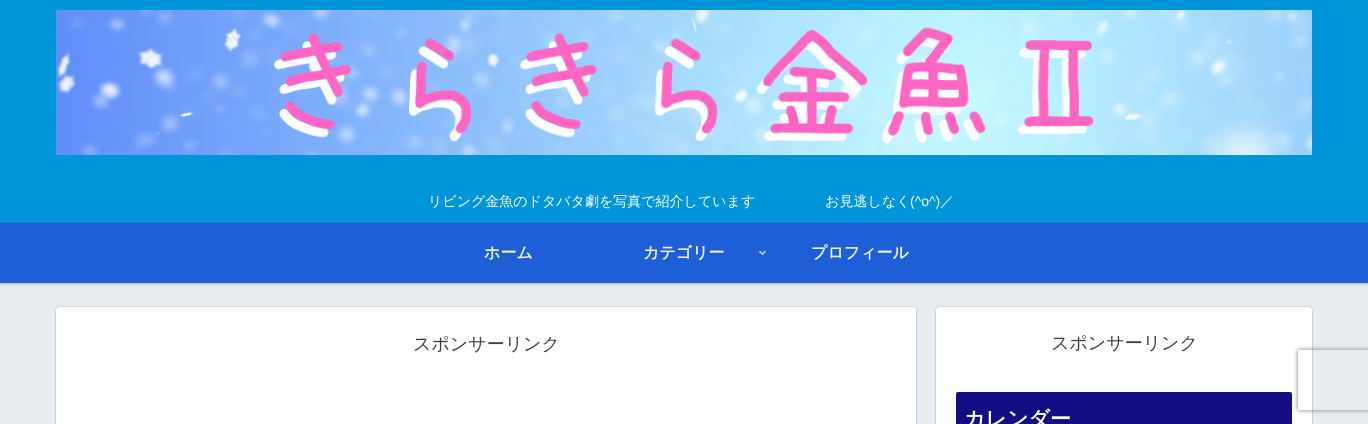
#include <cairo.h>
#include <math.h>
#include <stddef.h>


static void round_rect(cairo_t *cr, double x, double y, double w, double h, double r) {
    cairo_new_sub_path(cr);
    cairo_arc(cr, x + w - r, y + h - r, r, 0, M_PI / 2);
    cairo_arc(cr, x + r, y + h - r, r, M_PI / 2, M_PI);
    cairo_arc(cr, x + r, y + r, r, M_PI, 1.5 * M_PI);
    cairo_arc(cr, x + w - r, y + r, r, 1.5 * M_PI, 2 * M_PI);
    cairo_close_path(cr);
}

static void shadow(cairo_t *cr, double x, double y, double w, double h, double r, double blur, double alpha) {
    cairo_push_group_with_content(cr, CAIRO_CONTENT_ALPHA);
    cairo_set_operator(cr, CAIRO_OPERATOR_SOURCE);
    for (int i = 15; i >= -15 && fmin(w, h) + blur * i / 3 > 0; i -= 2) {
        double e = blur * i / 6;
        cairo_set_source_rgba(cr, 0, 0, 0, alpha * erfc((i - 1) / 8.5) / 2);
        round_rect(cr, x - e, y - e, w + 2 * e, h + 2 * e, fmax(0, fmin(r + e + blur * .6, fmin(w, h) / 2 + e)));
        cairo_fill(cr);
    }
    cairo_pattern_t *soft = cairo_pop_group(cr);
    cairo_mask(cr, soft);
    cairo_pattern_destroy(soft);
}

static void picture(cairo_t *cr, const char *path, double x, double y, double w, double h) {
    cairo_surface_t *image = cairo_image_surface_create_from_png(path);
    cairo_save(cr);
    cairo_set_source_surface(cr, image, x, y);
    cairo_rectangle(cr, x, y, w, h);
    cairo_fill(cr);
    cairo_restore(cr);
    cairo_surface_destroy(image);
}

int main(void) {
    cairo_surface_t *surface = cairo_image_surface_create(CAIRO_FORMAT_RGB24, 1368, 424);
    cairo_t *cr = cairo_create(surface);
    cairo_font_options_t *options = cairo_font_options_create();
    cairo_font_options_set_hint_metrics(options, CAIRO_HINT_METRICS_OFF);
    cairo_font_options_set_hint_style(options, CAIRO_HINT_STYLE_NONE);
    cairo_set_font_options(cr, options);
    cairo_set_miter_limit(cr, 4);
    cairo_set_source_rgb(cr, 0.902, 0.925, 0.941);
    cairo_paint(cr);
    cairo_set_source_rgb(cr, 0, 0.584, 0.851);
    cairo_rectangle(cr, 0, 0, 1368, 223);
    cairo_fill(cr);
    picture(cr, "img1.png", 56, 10, 1256, 145);
    cairo_select_font_face(cr, "WenQuanYi Zen Hei Medium", CAIRO_FONT_SLANT_NORMAL, CAIRO_FONT_WEIGHT_NORMAL);
    cairo_set_font_size(cr, 14);
    cairo_set_source_rgb(cr, 1, 1, 1);
    cairo_move_to(cr, 428, 206);
    cairo_show_text(cr, "リビング金魚のドタバタ劇を写真で紹介しています　　　　　お見逃しなく");
    cairo_select_font_face(cr, "Liberation Sans", CAIRO_FONT_SLANT_NORMAL, CAIRO_FONT_WEIGHT_NORMAL);
    cairo_move_to(cr, 910, 206);
    cairo_show_text(cr, "(^o^)");
    cairo_select_font_face(cr, "WenQuanYi Zen Hei Medium", CAIRO_FONT_SLANT_NORMAL, CAIRO_FONT_WEIGHT_NORMAL);
    cairo_move_to(cr, 940, 206);
    cairo_show_text(cr, "／");
    cairo_set_source_rgb(cr, 0, 0, 0);
    shadow(cr, 0, 224, 1368, 60, 0, 1.5, 0.25);
    cairo_set_source_rgb(cr, 0.118, 0.373, 0.847);
    cairo_rectangle(cr, 0, 223, 1368, 60);
    cairo_fill(cr);
    cairo_select_font_face(cr, "WenQuanYi Zen Hei", CAIRO_FONT_SLANT_NORMAL, CAIRO_FONT_WEIGHT_BOLD);
    cairo_set_font_size(cr, 16);
    cairo_set_source_rgb(cr, 0.957, 0.957, 0.957);
    cairo_move_to(cr, 484, 258);
    cairo_show_text(cr, "ホーム");
    cairo_move_to(cr, 643, 258);
    cairo_show_text(cr, "カテゴリー");
    picture(cr, "img2.png", 759, 250, 7, 5);
    cairo_move_to(cr, 811, 258);
    cairo_show_text(cr, "プロフィール");
    round_rect(cr, 55.5, 306.5, 861, 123, 4.5);
    cairo_set_source_rgb(cr, 0.831, 0.851, 0.867);
    cairo_set_line_width(cr, 1);
    cairo_stroke(cr);
    cairo_set_source_rgb(cr, 0, 0, 0);
    shadow(cr, 56, 309, 860, 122, 4, 1, 0.16);
    cairo_set_source_rgb(cr, 1, 1, 1);
    round_rect(cr, 56, 307, 860, 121, 4);
    cairo_fill(cr);
    cairo_select_font_face(cr, "WenQuanYi Zen Hei Medium", CAIRO_FONT_SLANT_NORMAL, CAIRO_FONT_WEIGHT_NORMAL);
    cairo_set_font_size(cr, 18);
    cairo_set_source_rgb(cr, 0.259, 0.243, 0.243);
    cairo_move_to(cr, 413, 350);
    cairo_show_text(cr, "スポンサーリンク");
    round_rect(cr, 935.5, 306.5, 377, 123, 4.5);
    cairo_set_source_rgb(cr, 0.831, 0.851, 0.867);
    cairo_stroke(cr);
    cairo_set_source_rgb(cr, 0, 0, 0);
    shadow(cr, 936, 309, 376, 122, 4, 1, 0.16);
    cairo_set_source_rgb(cr, 1, 1, 1);
    round_rect(cr, 936, 307, 376, 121, 4);
    cairo_fill(cr);
    cairo_set_source_rgb(cr, 0.259, 0.243, 0.243);
    cairo_move_to(cr, 1051, 349);
    cairo_show_text(cr, "スポンサーリンク");
    cairo_set_source_rgb(cr, 0.078, 0.055, 0.518);
    round_rect(cr, 956, 392, 336, 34, 2);
    cairo_fill(cr);
    cairo_select_font_face(cr, "WenQuanYi Zen Hei", CAIRO_FONT_SLANT_NORMAL, CAIRO_FONT_WEIGHT_BOLD);
    cairo_set_font_size(cr, 21);
    cairo_set_source_rgb(cr, 1, 1, 1);
    cairo_move_to(cr, 964, 426);
    cairo_show_text(cr, "カレンダー");
    cairo_save(cr);
    cairo_set_fill_rule(cr, CAIRO_FILL_RULE_EVEN_ODD);
    cairo_new_path(cr);
    cairo_move_to(cr, 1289, 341);
    cairo_line_to(cr, 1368, 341);
    cairo_line_to(cr, 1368, 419);
    cairo_line_to(cr, 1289, 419);
    cairo_close_path(cr);
    cairo_move_to(cr, 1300, 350);
    cairo_line_to(cr, 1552, 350);
    cairo_curve_to(cr, 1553, 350, 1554, 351, 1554, 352);
    cairo_line_to(cr, 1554, 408);
    cairo_curve_to(cr, 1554, 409, 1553, 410, 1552, 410);
    cairo_line_to(cr, 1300, 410);
    cairo_curve_to(cr, 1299, 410, 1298, 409, 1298, 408);
    cairo_line_to(cr, 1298, 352);
    cairo_curve_to(cr, 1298, 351, 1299, 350, 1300, 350);
    cairo_close_path(cr);
    cairo_clip(cr);
    cairo_set_source_rgb(cr, 0.502, 0.502, 0.502);
    shadow(cr, 1298, 350, 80, 60, 2, 2.5, 1);
    cairo_restore(cr);
    cairo_surface_write_to_png(surface, "page.png");
    cairo_font_options_destroy(options);
    cairo_destroy(cr);
    cairo_surface_destroy(surface);
    return 0;
}
